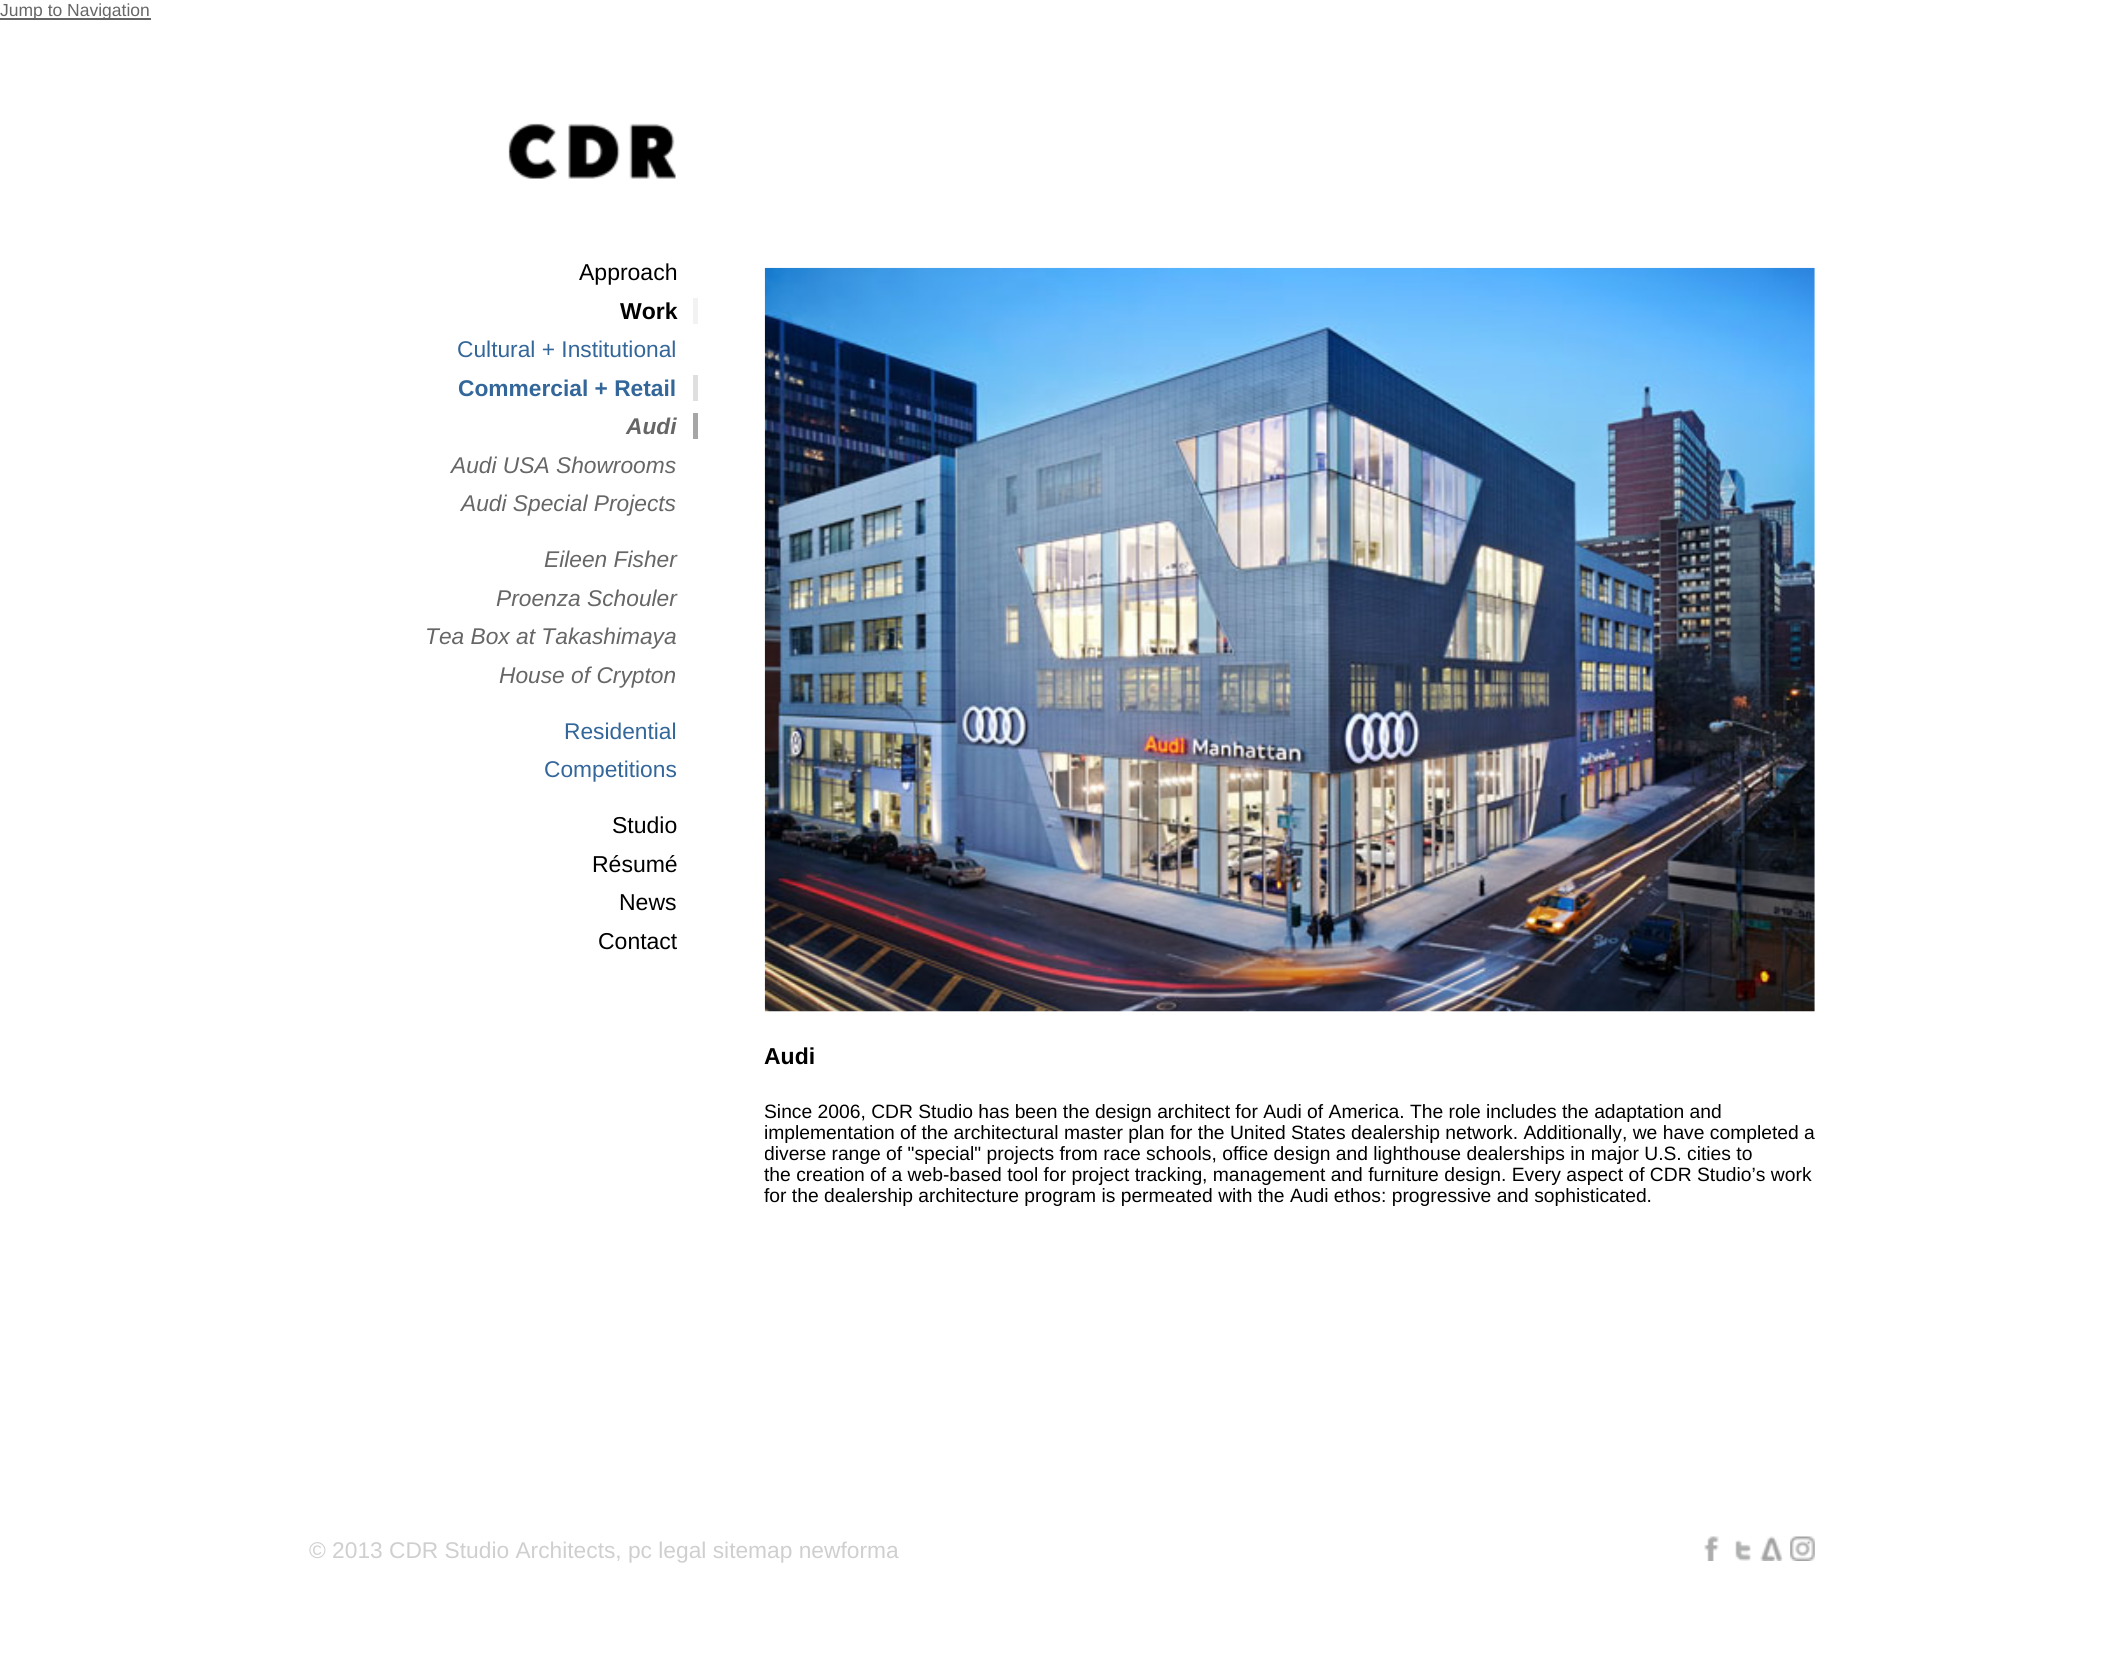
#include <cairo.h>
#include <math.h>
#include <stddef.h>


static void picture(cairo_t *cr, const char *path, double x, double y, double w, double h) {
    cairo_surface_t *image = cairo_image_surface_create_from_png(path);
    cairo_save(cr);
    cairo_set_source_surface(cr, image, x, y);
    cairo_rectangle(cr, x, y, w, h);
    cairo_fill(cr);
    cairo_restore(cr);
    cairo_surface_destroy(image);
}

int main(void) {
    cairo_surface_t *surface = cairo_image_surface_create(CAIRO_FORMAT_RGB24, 2122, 1678);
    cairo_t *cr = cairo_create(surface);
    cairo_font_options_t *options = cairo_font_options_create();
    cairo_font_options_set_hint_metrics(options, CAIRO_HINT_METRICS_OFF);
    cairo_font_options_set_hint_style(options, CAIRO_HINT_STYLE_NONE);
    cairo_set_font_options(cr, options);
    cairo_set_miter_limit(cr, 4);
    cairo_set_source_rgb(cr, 1, 1, 1);
    cairo_paint(cr);
    cairo_set_source_rgb(cr, 0.4, 0.4, 0.4);
    cairo_rectangle(cr, 0, 18, 151, 2);
    cairo_fill(cr);
    cairo_select_font_face(cr, "Liberation Sans", CAIRO_FONT_SLANT_NORMAL, CAIRO_FONT_WEIGHT_NORMAL);
    cairo_set_font_size(cr, 17.5);
    cairo_move_to(cr, 0, 16);
    cairo_show_text(cr, "Jump to Navigation");
    picture(cr, "img1.png", 508, 123, 168, 56);
    cairo_set_font_size(cr, 23);
    cairo_set_source_rgb(cr, 0, 0, 0);
    cairo_move_to(cr, 579, 280);
    cairo_show_text(cr, "Approach");
    cairo_select_font_face(cr, "Liberation Sans", CAIRO_FONT_SLANT_NORMAL, CAIRO_FONT_WEIGHT_BOLD);
    cairo_move_to(cr, 620, 319);
    cairo_show_text(cr, "Work");
    cairo_set_source_rgb(cr, 0.949, 0.949, 0.949);
    cairo_rectangle(cr, 693, 298, 5, 26);
    cairo_fill(cr);
    cairo_select_font_face(cr, "Liberation Sans", CAIRO_FONT_SLANT_NORMAL, CAIRO_FONT_WEIGHT_NORMAL);
    cairo_set_font_size(cr, 22.75);
    cairo_set_source_rgb(cr, 0.2, 0.4, 0.6);
    cairo_move_to(cr, 457, 357);
    cairo_show_text(cr, "Cultural + Institutional");
    cairo_select_font_face(cr, "Liberation Sans", CAIRO_FONT_SLANT_NORMAL, CAIRO_FONT_WEIGHT_BOLD);
    cairo_move_to(cr, 458, 396);
    cairo_show_text(cr, "Commercial + Retail");
    cairo_set_source_rgb(cr, 0.875, 0.875, 0.875);
    cairo_rectangle(cr, 693, 375, 5, 26);
    cairo_fill(cr);
    cairo_select_font_face(cr, "Liberation Sans", CAIRO_FONT_SLANT_ITALIC, CAIRO_FONT_WEIGHT_BOLD);
    cairo_set_source_rgb(cr, 0.4, 0.4, 0.4);
    cairo_move_to(cr, 626, 434);
    cairo_show_text(cr, "Audi");
    cairo_set_source_rgb(cr, 0.651, 0.651, 0.651);
    cairo_rectangle(cr, 693, 413, 5, 26);
    cairo_fill(cr);
    cairo_select_font_face(cr, "Liberation Sans", CAIRO_FONT_SLANT_ITALIC, CAIRO_FONT_WEIGHT_NORMAL);
    cairo_set_source_rgb(cr, 0.4, 0.4, 0.4);
    cairo_move_to(cr, 451, 473);
    cairo_show_text(cr, "Audi USA Showrooms");
    cairo_move_to(cr, 461, 511);
    cairo_show_text(cr, "Audi Special Projects");
    cairo_move_to(cr, 544, 567);
    cairo_show_text(cr, "Eileen Fisher");
    cairo_move_to(cr, 496, 606);
    cairo_show_text(cr, "Proenza Schouler");
    cairo_move_to(cr, 425, 644);
    cairo_show_text(cr, "Tea Box at Takashimaya");
    cairo_move_to(cr, 499, 683);
    cairo_show_text(cr, "House of Crypton");
    cairo_select_font_face(cr, "Liberation Sans", CAIRO_FONT_SLANT_NORMAL, CAIRO_FONT_WEIGHT_NORMAL);
    cairo_set_source_rgb(cr, 0.2, 0.4, 0.6);
    cairo_move_to(cr, 564, 739);
    cairo_show_text(cr, "Residential");
    cairo_move_to(cr, 544, 777);
    cairo_show_text(cr, "Competitions");
    cairo_set_font_size(cr, 23);
    cairo_set_source_rgb(cr, 0, 0, 0);
    cairo_move_to(cr, 612, 833);
    cairo_show_text(cr, "Studio");
    cairo_move_to(cr, 592, 872);
    cairo_show_text(cr, "Résumé");
    cairo_move_to(cr, 619, 910);
    cairo_show_text(cr, "News");
    cairo_move_to(cr, 598, 949);
    cairo_show_text(cr, "Contact");
    picture(cr, "img2.png", 764, 267, 1051, 745);
    cairo_select_font_face(cr, "Liberation Sans", CAIRO_FONT_SLANT_NORMAL, CAIRO_FONT_WEIGHT_BOLD);
    cairo_move_to(cr, 764, 1064);
    cairo_show_text(cr, "Audi");
    cairo_select_font_face(cr, "Liberation Sans", CAIRO_FONT_SLANT_NORMAL, CAIRO_FONT_WEIGHT_NORMAL);
    cairo_set_font_size(cr, 19.27);
    cairo_move_to(cr, 764, 1118);
    cairo_show_text(cr, "Since 2006, CDR Studio has been the design architect for Audi of America. The role includes the adaptation and");
    cairo_move_to(cr, 764, 1139);
    cairo_show_text(cr, "implementation of the architectural master plan for the United States dealership network. Additionally, we have completed a");
    cairo_save(cr);
    cairo_rectangle(cr, 765, 1012, 1050, 218);
    cairo_clip(cr);
    cairo_move_to(cr, 764, 1160);
    cairo_show_text(cr, "diverse range of \"special\" projects from race schools, office design and lighthouse dealerships in major U.S. cities to");
    cairo_restore(cr);
    cairo_move_to(cr, 764, 1181);
    cairo_show_text(cr, "the creation of a web-based tool for project tracking, management and furniture design. Every aspect of CDR Studio’s work");
    cairo_move_to(cr, 764, 1202);
    cairo_show_text(cr, "for the dealership architecture program is permeated with the Audi ethos: progressive and sophisticated.");
    cairo_set_font_size(cr, 22.75);
    cairo_set_source_rgb(cr, 0.812, 0.812, 0.812);
    cairo_move_to(cr, 309, 1558);
    cairo_show_text(cr, "© 2013 CDR Studio Architects, pc legal sitemap newforma");
    picture(cr, "img3.png", 1704, 1536, 15, 25);
    picture(cr, "img4.png", 1735, 1540, 16, 21);
    picture(cr, "img5.png", 1760, 1536, 23, 25);
    picture(cr, "img6.png", 1790, 1536, 25, 25);
    cairo_surface_write_to_png(surface, "page.png");
    cairo_font_options_destroy(options);
    cairo_destroy(cr);
    cairo_surface_destroy(surface);
    return 0;
}
